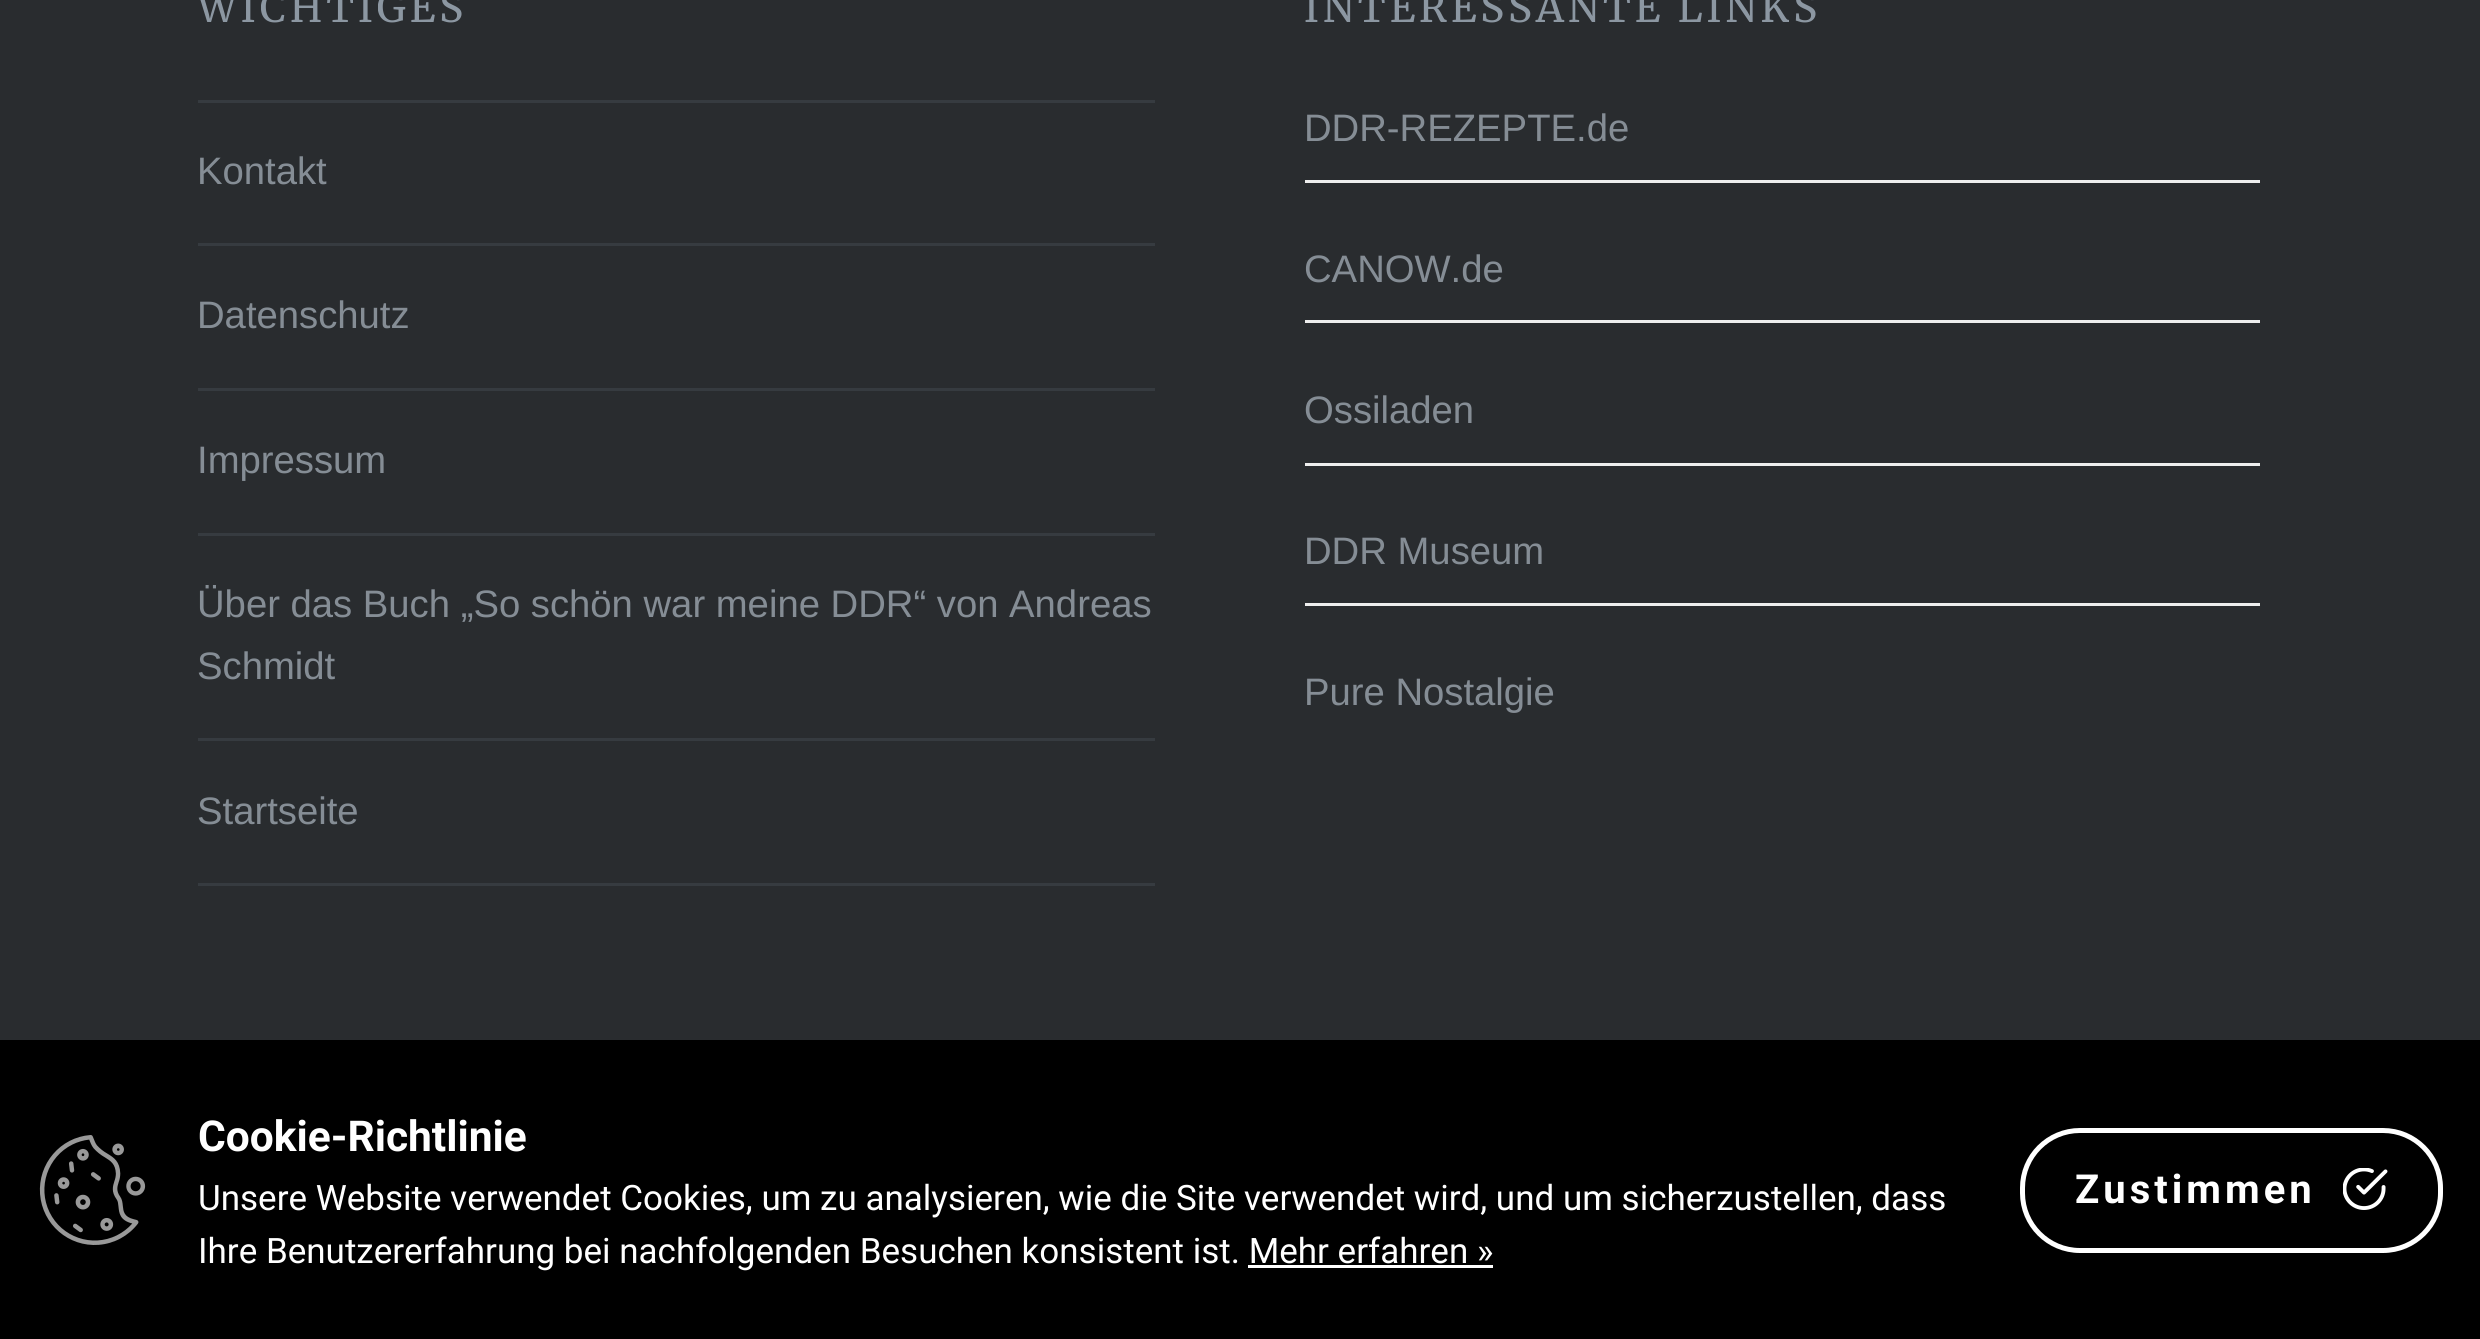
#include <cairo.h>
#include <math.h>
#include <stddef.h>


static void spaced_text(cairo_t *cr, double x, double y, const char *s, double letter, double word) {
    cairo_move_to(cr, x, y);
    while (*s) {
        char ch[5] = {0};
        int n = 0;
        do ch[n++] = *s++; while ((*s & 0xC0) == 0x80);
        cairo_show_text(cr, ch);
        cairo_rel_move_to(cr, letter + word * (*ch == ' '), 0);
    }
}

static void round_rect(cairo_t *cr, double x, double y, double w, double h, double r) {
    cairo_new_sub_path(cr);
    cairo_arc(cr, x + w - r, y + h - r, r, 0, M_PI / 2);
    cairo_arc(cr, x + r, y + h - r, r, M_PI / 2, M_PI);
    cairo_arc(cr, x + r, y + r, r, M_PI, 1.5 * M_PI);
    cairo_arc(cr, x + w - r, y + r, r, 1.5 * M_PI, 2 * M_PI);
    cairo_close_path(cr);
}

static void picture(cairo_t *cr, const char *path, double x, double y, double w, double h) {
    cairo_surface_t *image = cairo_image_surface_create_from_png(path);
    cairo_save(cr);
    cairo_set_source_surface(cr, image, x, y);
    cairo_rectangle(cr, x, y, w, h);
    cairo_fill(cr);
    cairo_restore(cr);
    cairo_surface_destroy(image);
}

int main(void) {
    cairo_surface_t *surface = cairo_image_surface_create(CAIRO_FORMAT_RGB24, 2480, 1339);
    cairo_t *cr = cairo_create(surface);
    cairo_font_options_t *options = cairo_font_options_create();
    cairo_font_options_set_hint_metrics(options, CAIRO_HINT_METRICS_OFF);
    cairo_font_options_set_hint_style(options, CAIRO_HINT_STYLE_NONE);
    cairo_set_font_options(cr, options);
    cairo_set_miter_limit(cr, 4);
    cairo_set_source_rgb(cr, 0.161, 0.173, 0.184);
    cairo_paint(cr);
    cairo_select_font_face(cr, "Merriweather Light", CAIRO_FONT_SLANT_NORMAL, CAIRO_FONT_WEIGHT_NORMAL);
    cairo_set_font_size(cr, 40);
    cairo_set_source_rgb(cr, 0.549, 0.592, 0.635);
    spaced_text(cr, 197, 22, "WICHTIGES", 4, 0);
    cairo_set_source_rgb(cr, 0.212, 0.231, 0.251);
    cairo_rectangle(cr, 198, 100, 957, 3);
    cairo_fill(cr);
    cairo_rectangle(cr, 198, 243, 957, 3);
    cairo_fill(cr);
    cairo_select_font_face(cr, "Arimo", CAIRO_FONT_SLANT_NORMAL, CAIRO_FONT_WEIGHT_NORMAL);
    cairo_set_font_size(cr, 38.25);
    cairo_set_source_rgb(cr, 0.522, 0.553, 0.584);
    cairo_move_to(cr, 197, 184);
    cairo_show_text(cr, "Kontakt");
    cairo_set_source_rgb(cr, 0.212, 0.231, 0.251);
    cairo_rectangle(cr, 198, 388, 957, 3);
    cairo_fill(cr);
    cairo_set_source_rgb(cr, 0.522, 0.553, 0.584);
    cairo_move_to(cr, 197, 328);
    cairo_show_text(cr, "Datenschutz");
    cairo_set_source_rgb(cr, 0.212, 0.231, 0.251);
    cairo_rectangle(cr, 198, 533, 957, 3);
    cairo_fill(cr);
    cairo_set_source_rgb(cr, 0.522, 0.553, 0.584);
    cairo_move_to(cr, 197, 473);
    cairo_show_text(cr, "Impressum");
    cairo_set_source_rgb(cr, 0.212, 0.231, 0.251);
    cairo_rectangle(cr, 198, 738, 957, 3);
    cairo_fill(cr);
    cairo_set_source_rgb(cr, 0.522, 0.553, 0.584);
    cairo_move_to(cr, 197, 617);
    cairo_show_text(cr, "Über das Buch „So schön war meine DDR“ von Andreas");
    cairo_move_to(cr, 197, 679);
    cairo_show_text(cr, "Schmidt");
    cairo_set_source_rgb(cr, 0.212, 0.231, 0.251);
    cairo_rectangle(cr, 198, 883, 957, 3);
    cairo_fill(cr);
    cairo_set_source_rgb(cr, 0.522, 0.553, 0.584);
    cairo_move_to(cr, 197, 824);
    cairo_show_text(cr, "Startseite");
    cairo_select_font_face(cr, "Merriweather Light", CAIRO_FONT_SLANT_NORMAL, CAIRO_FONT_WEIGHT_NORMAL);
    cairo_set_font_size(cr, 40);
    cairo_set_source_rgb(cr, 0.549, 0.592, 0.635);
    spaced_text(cr, 1304, 22, "INTERESSANTE LINKS", 4, 0);
    cairo_select_font_face(cr, "Arimo", CAIRO_FONT_SLANT_NORMAL, CAIRO_FONT_WEIGHT_NORMAL);
    cairo_set_font_size(cr, 38.25);
    cairo_set_source_rgb(cr, 0.522, 0.553, 0.584);
    cairo_move_to(cr, 1304, 141);
    cairo_show_text(cr, "DDR-REZEPTE.de");
    cairo_set_source_rgb(cr, 0.933, 0.933, 0.933);
    cairo_rectangle(cr, 1305, 180, 955, 3);
    cairo_fill(cr);
    cairo_set_source_rgb(cr, 0.522, 0.553, 0.584);
    cairo_move_to(cr, 1304, 282);
    cairo_show_text(cr, "CANOW.de");
    cairo_set_source_rgb(cr, 0.933, 0.933, 0.933);
    cairo_rectangle(cr, 1305, 320, 955, 3);
    cairo_fill(cr);
    cairo_set_source_rgb(cr, 0.522, 0.553, 0.584);
    cairo_move_to(cr, 1304, 423);
    cairo_show_text(cr, "Ossiladen");
    cairo_set_source_rgb(cr, 0.933, 0.933, 0.933);
    cairo_rectangle(cr, 1305, 463, 955, 3);
    cairo_fill(cr);
    cairo_set_source_rgb(cr, 0.522, 0.553, 0.584);
    cairo_move_to(cr, 1304, 564);
    cairo_show_text(cr, "DDR Museum");
    cairo_set_source_rgb(cr, 0.933, 0.933, 0.933);
    cairo_rectangle(cr, 1305, 603, 955, 3);
    cairo_fill(cr);
    cairo_set_source_rgb(cr, 0.522, 0.553, 0.584);
    cairo_move_to(cr, 1304, 705);
    cairo_show_text(cr, "Pure Nostalgie");
    cairo_set_source_rgb(cr, 0, 0, 0);
    cairo_rectangle(cr, 0, 1040, 2480, 299);
    cairo_fill(cr);
    picture(cr, "img1.png", 39, 1135, 107, 110);
    cairo_select_font_face(cr, "Roboto", CAIRO_FONT_SLANT_NORMAL, CAIRO_FONT_WEIGHT_BOLD);
    cairo_set_font_size(cr, 42.5);
    cairo_set_source_rgb(cr, 1, 1, 1);
    cairo_move_to(cr, 198, 1151);
    cairo_show_text(cr, "Cookie-Richtlinie");
    cairo_select_font_face(cr, "Roboto", CAIRO_FONT_SLANT_NORMAL, CAIRO_FONT_WEIGHT_NORMAL);
    cairo_set_font_size(cr, 35);
    cairo_move_to(cr, 198, 1210);
    cairo_show_text(cr, "Unsere Website verwendet Cookies, um zu analysieren, wie die Site verwendet wird, und um sicherzustellen, dass");
    cairo_move_to(cr, 198, 1263);
    cairo_show_text(cr, "Ihre Benutzererfahrung bei nachfolgenden Besuchen konsistent ist. Mehr erfahren »");
    cairo_rectangle(cr, 1248, 1265, 245, 3);
    cairo_fill(cr);
    round_rect(cr, 2022.5, 1130.5, 418, 120, 57.5);
    cairo_set_line_width(cr, 5);
    cairo_stroke(cr);
    cairo_select_font_face(cr, "Roboto", CAIRO_FONT_SLANT_NORMAL, CAIRO_FONT_WEIGHT_BOLD);
    cairo_set_font_size(cr, 40);
    spaced_text(cr, 2075, 1203, "Zustimmen", 4, 0);
    picture(cr, "img2.png", 2343, 1168, 45, 42);
    cairo_surface_write_to_png(surface, "page.png");
    cairo_font_options_destroy(options);
    cairo_destroy(cr);
    cairo_surface_destroy(surface);
    return 0;
}
